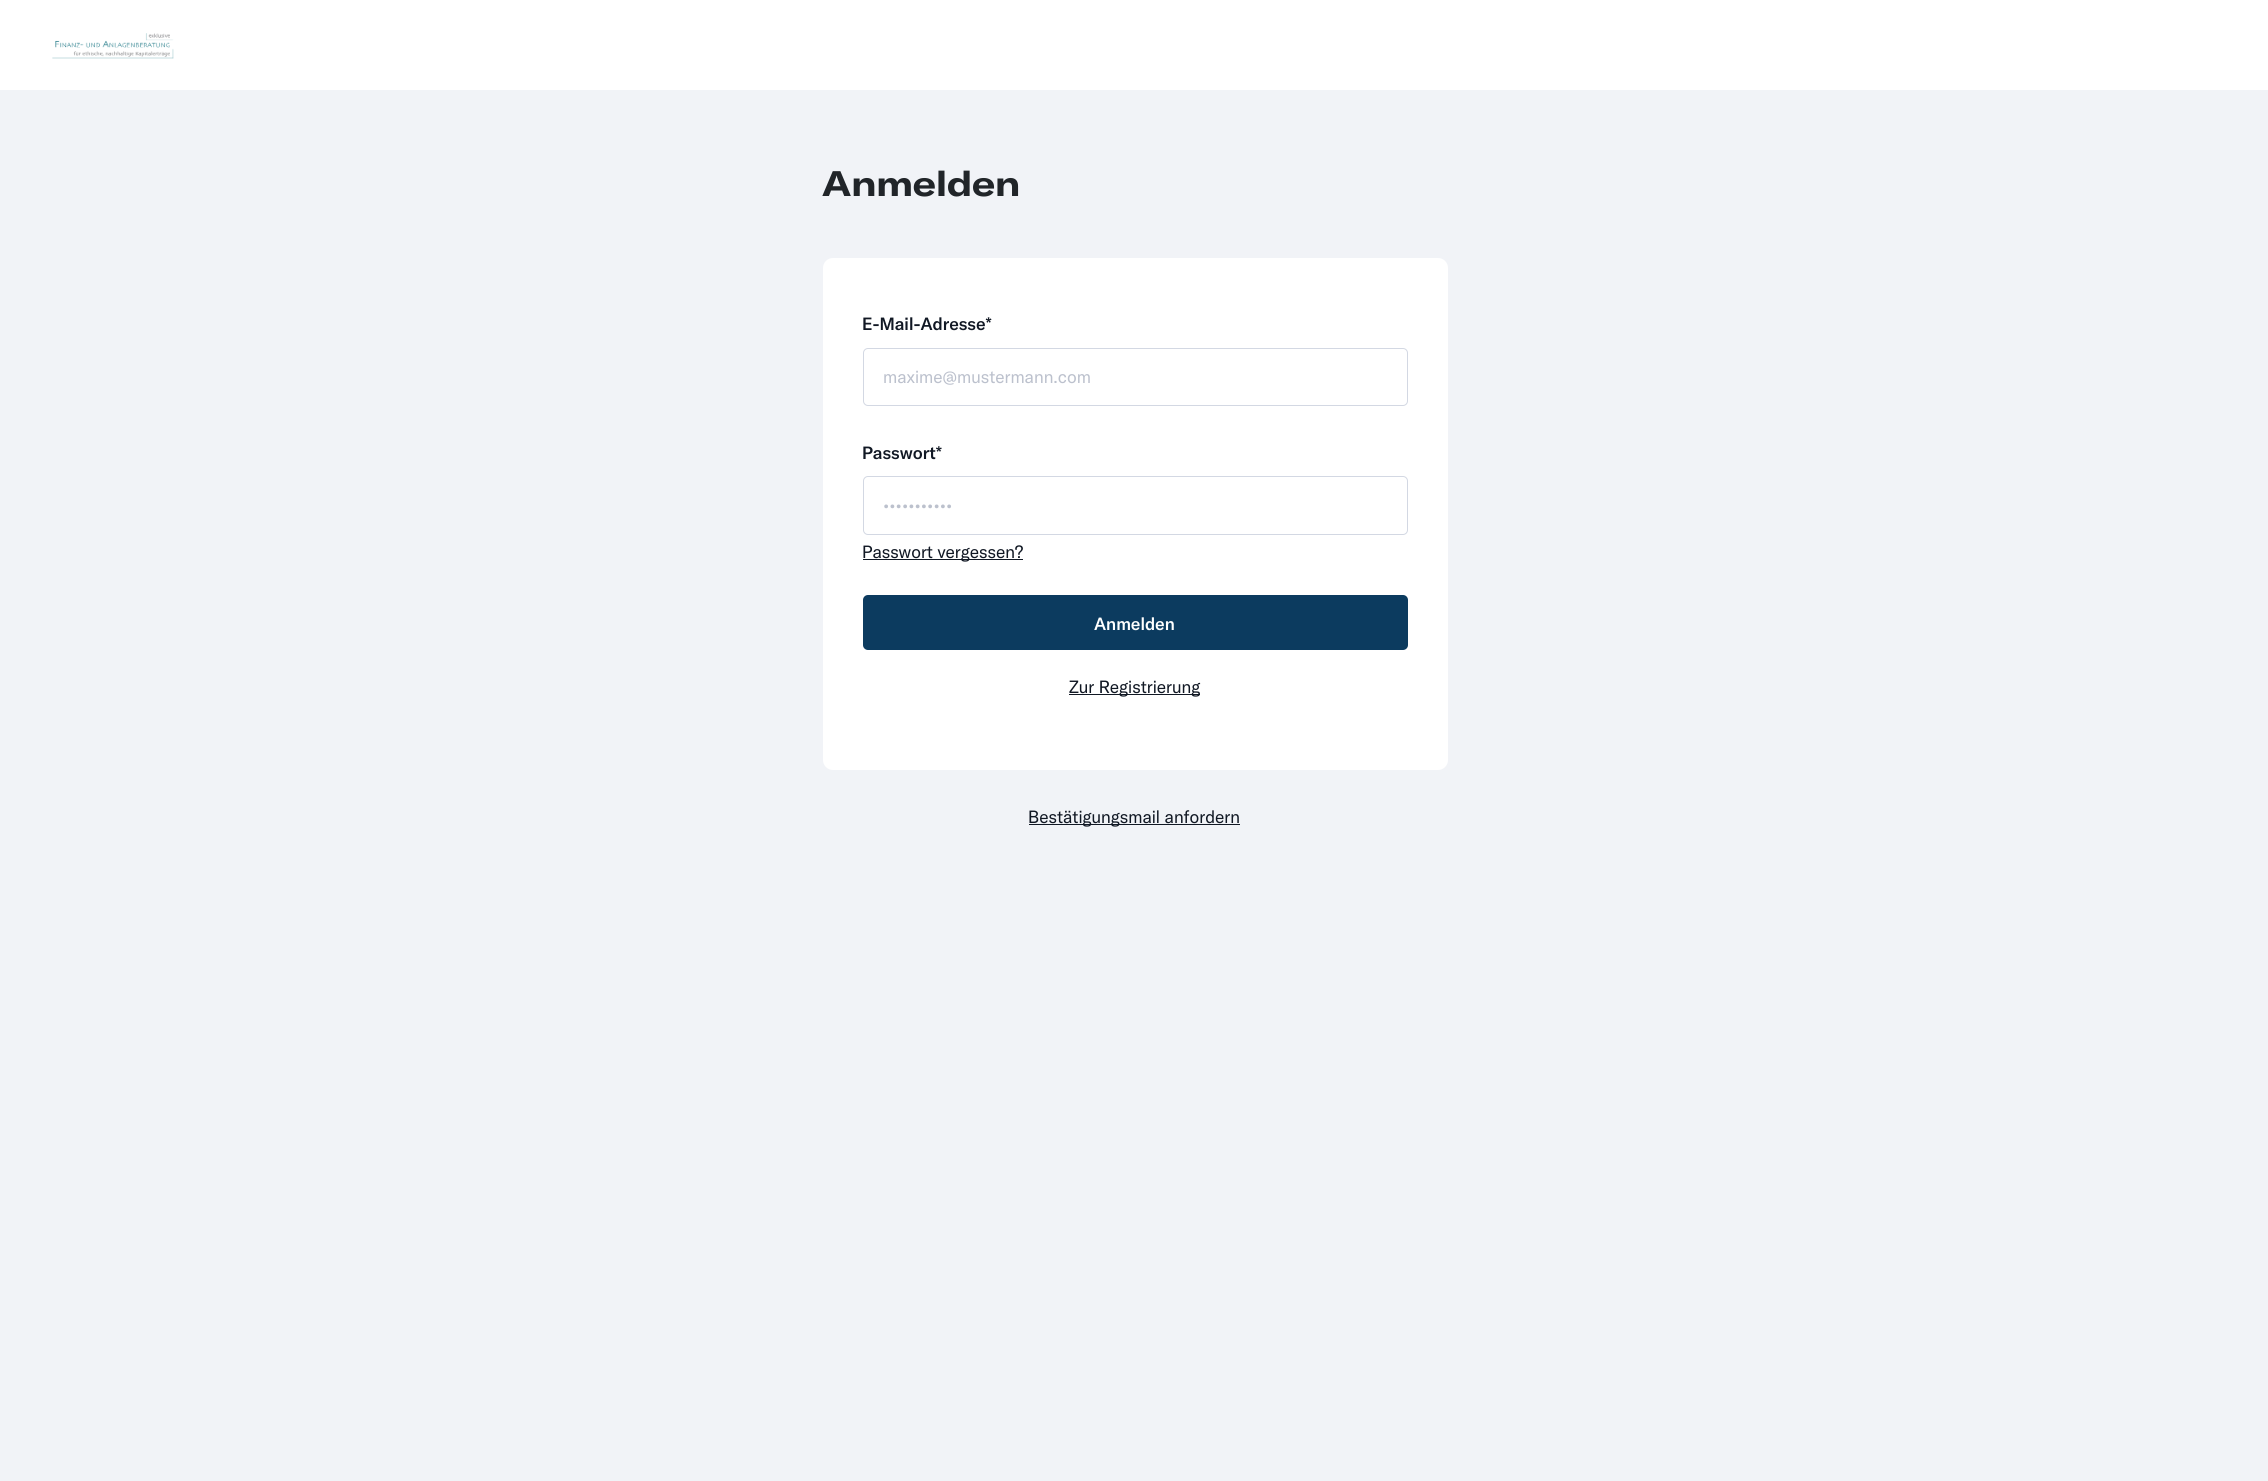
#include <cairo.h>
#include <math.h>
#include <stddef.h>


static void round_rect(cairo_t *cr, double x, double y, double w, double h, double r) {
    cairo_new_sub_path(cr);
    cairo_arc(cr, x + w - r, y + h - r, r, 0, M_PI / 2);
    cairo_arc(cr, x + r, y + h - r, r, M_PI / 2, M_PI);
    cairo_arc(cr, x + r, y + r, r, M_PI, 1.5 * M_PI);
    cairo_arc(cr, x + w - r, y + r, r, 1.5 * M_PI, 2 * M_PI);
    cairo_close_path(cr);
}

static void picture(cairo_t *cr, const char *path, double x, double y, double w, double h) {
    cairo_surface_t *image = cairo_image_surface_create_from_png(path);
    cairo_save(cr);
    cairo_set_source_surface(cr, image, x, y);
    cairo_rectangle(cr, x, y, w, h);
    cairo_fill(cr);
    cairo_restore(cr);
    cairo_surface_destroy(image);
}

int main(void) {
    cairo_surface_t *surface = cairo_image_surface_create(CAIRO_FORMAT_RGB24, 2268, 1481);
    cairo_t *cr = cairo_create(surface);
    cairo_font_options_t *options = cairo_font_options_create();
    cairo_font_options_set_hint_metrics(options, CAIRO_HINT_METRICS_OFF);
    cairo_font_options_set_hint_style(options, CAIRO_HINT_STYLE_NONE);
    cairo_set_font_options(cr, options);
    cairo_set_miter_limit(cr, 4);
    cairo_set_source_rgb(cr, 0.945, 0.953, 0.965);
    cairo_paint(cr);
    cairo_set_source_rgb(cr, 1, 1, 1);
    cairo_rectangle(cr, 0, 0, 2268, 90);
    cairo_fill(cr);
    picture(cr, "img1.png", 52, 33, 122, 26);
    cairo_select_font_face(cr, "GT America", CAIRO_FONT_SLANT_NORMAL, CAIRO_FONT_WEIGHT_BOLD);
    cairo_set_font_size(cr, 35);
    cairo_set_source_rgb(cr, 0.129, 0.145, 0.161);
    cairo_move_to(cr, 822, 196);
    cairo_show_text(cr, "Anmelden");
    cairo_set_source_rgb(cr, 1, 1, 1);
    round_rect(cr, 823, 258, 625, 512, 10);
    cairo_fill(cr);
    cairo_select_font_face(cr, "GT America Medium", CAIRO_FONT_SLANT_NORMAL, CAIRO_FONT_WEIGHT_NORMAL);
    cairo_set_font_size(cr, 17.5);
    cairo_set_source_rgb(cr, 0.067, 0.094, 0.141);
    cairo_move_to(cr, 862, 330);
    cairo_show_text(cr, "E-Mail-Adresse*");
    round_rect(cr, 863.5, 348.5, 544, 57, 4.5);
    cairo_set_source_rgb(cr, 0.827, 0.847, 0.89);
    cairo_set_line_width(cr, 1);
    cairo_stroke(cr);
    cairo_select_font_face(cr, "GT America", CAIRO_FONT_SLANT_NORMAL, CAIRO_FONT_WEIGHT_NORMAL);
    cairo_set_source_rgb(cr, 0.737, 0.757, 0.804);
    cairo_move_to(cr, 883, 383);
    cairo_show_text(cr, "maxime@mustermann.com");
    cairo_select_font_face(cr, "GT America Medium", CAIRO_FONT_SLANT_NORMAL, CAIRO_FONT_WEIGHT_NORMAL);
    cairo_set_source_rgb(cr, 0.067, 0.094, 0.141);
    cairo_move_to(cr, 862, 459);
    cairo_show_text(cr, "Passwort*");
    round_rect(cr, 863.5, 476.5, 544, 58, 4.5);
    cairo_set_source_rgb(cr, 0.827, 0.847, 0.89);
    cairo_stroke(cr);
    cairo_select_font_face(cr, "GT America", CAIRO_FONT_SLANT_NORMAL, CAIRO_FONT_WEIGHT_NORMAL);
    cairo_set_source_rgb(cr, 0.737, 0.757, 0.804);
    cairo_move_to(cr, 883, 511);
    cairo_show_text(cr, "•••••••••••");
    cairo_set_source_rgb(cr, 0.067, 0.094, 0.141);
    cairo_rectangle(cr, 863, 559, 160, 1);
    cairo_fill(cr);
    cairo_move_to(cr, 862, 558);
    cairo_show_text(cr, "Passwort vergessen?");
    cairo_set_source_rgb(cr, 0.047, 0.231, 0.373);
    round_rect(cr, 863, 595, 545, 55, 5);
    cairo_fill(cr);
    cairo_select_font_face(cr, "GT America Medium", CAIRO_FONT_SLANT_NORMAL, CAIRO_FONT_WEIGHT_NORMAL);
    cairo_set_source_rgb(cr, 1, 1, 1);
    cairo_move_to(cr, 1094, 630);
    cairo_show_text(cr, "Anmelden");
    cairo_set_source_rgb(cr, 0.067, 0.094, 0.141);
    cairo_rectangle(cr, 1069, 694, 131, 1);
    cairo_fill(cr);
    cairo_select_font_face(cr, "GT America", CAIRO_FONT_SLANT_NORMAL, CAIRO_FONT_WEIGHT_NORMAL);
    cairo_move_to(cr, 1069, 693);
    cairo_show_text(cr, "Zur Registrierung");
    cairo_rectangle(cr, 1029, 824, 211, 1);
    cairo_fill(cr);
    cairo_move_to(cr, 1028, 823);
    cairo_show_text(cr, "Bestätigungsmail anfordern");
    cairo_surface_write_to_png(surface, "page.png");
    cairo_font_options_destroy(options);
    cairo_destroy(cr);
    cairo_surface_destroy(surface);
    return 0;
}
